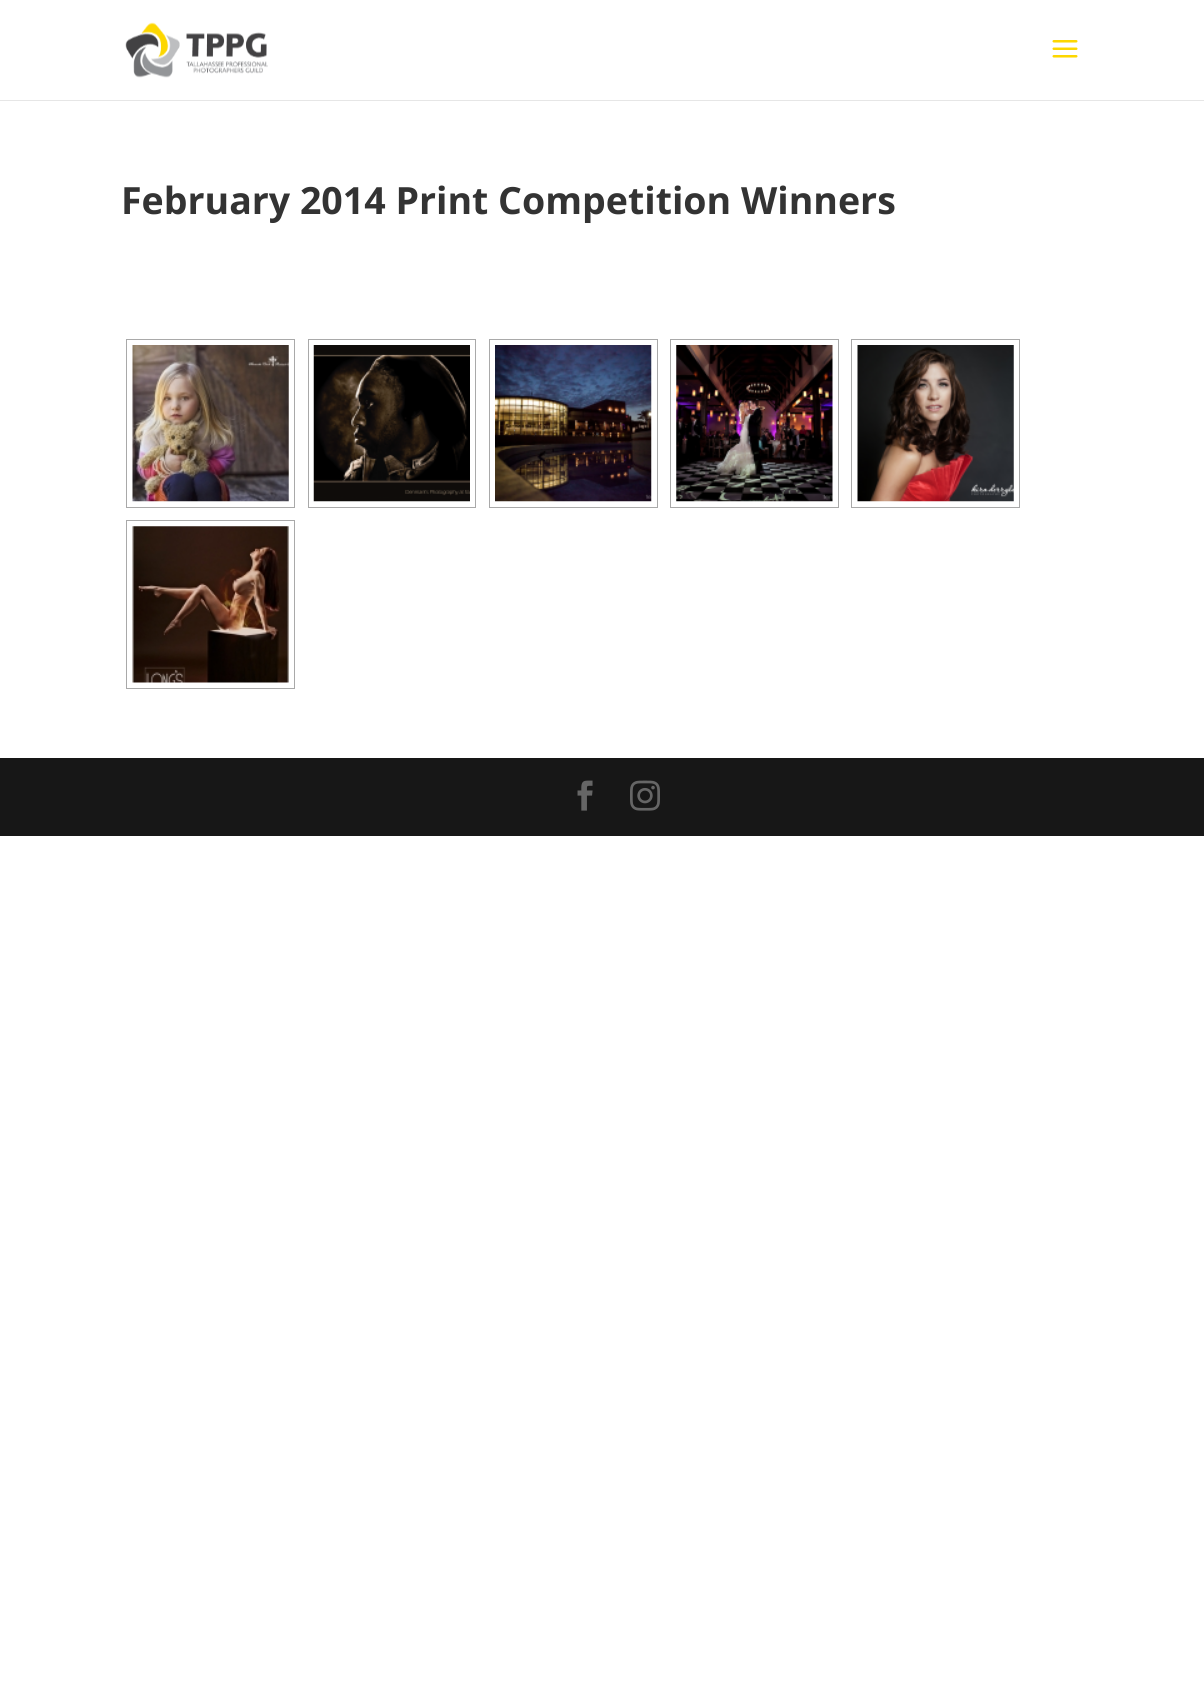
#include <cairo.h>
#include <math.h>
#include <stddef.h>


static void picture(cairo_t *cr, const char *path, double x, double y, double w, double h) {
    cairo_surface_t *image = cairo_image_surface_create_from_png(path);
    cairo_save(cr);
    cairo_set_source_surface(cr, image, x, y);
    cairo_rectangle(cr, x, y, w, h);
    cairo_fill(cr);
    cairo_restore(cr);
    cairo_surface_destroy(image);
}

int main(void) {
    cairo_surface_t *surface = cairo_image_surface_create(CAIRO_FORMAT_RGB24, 1204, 1685);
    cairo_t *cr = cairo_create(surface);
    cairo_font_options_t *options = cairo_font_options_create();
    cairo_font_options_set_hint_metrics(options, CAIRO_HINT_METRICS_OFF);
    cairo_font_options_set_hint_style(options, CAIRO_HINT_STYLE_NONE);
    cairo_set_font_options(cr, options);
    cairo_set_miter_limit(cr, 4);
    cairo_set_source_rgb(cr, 1, 1, 1);
    cairo_paint(cr);
    cairo_set_source_rgb(cr, 0.902, 0.902, 0.902);
    cairo_rectangle(cr, 0, 100, 1204, 1);
    cairo_fill(cr);
    picture(cr, "img1.png", 125, 22, 143, 56);
    picture(cr, "img2.png", 1052, 40, 26, 18);
    cairo_select_font_face(cr, "Open Sans", CAIRO_FONT_SLANT_NORMAL, CAIRO_FONT_WEIGHT_BOLD);
    cairo_set_font_size(cr, 37.5);
    cairo_set_source_rgb(cr, 0.2, 0.2, 0.2);
    cairo_move_to(cr, 121, 214);
    cairo_show_text(cr, "February 2014 Print Competition Winners");
    cairo_rectangle(cr, 126.5, 339.5, 168, 168);
    cairo_set_source_rgb(cr, 0.663, 0.663, 0.663);
    cairo_set_line_width(cr, 1);
    cairo_stroke(cr);
    picture(cr, "img3.png", 132, 345, 157, 157);
    cairo_rectangle(cr, 308.5, 339.5, 167, 168);
    cairo_stroke(cr);
    picture(cr, "img4.png", 313, 345, 157, 157);
    cairo_rectangle(cr, 489.5, 339.5, 168, 168);
    cairo_stroke(cr);
    picture(cr, "img5.png", 495, 345, 157, 157);
    cairo_rectangle(cr, 670.5, 339.5, 168, 168);
    cairo_stroke(cr);
    picture(cr, "img6.png", 676, 345, 157, 157);
    cairo_rectangle(cr, 851.5, 339.5, 168, 168);
    cairo_stroke(cr);
    picture(cr, "img7.png", 857, 345, 157, 157);
    cairo_rectangle(cr, 126.5, 520.5, 168, 168);
    cairo_stroke(cr);
    picture(cr, "img8.png", 132, 526, 157, 157);
    cairo_set_source_rgb(cr, 0.09, 0.09, 0.09);
    cairo_rectangle(cr, 0, 758, 1204, 78);
    cairo_fill(cr);
    picture(cr, "img9.png", 577, 780, 16, 31);
    picture(cr, "img10.png", 630, 780, 30, 31);
    cairo_surface_write_to_png(surface, "page.png");
    cairo_font_options_destroy(options);
    cairo_destroy(cr);
    cairo_surface_destroy(surface);
    return 0;
}
